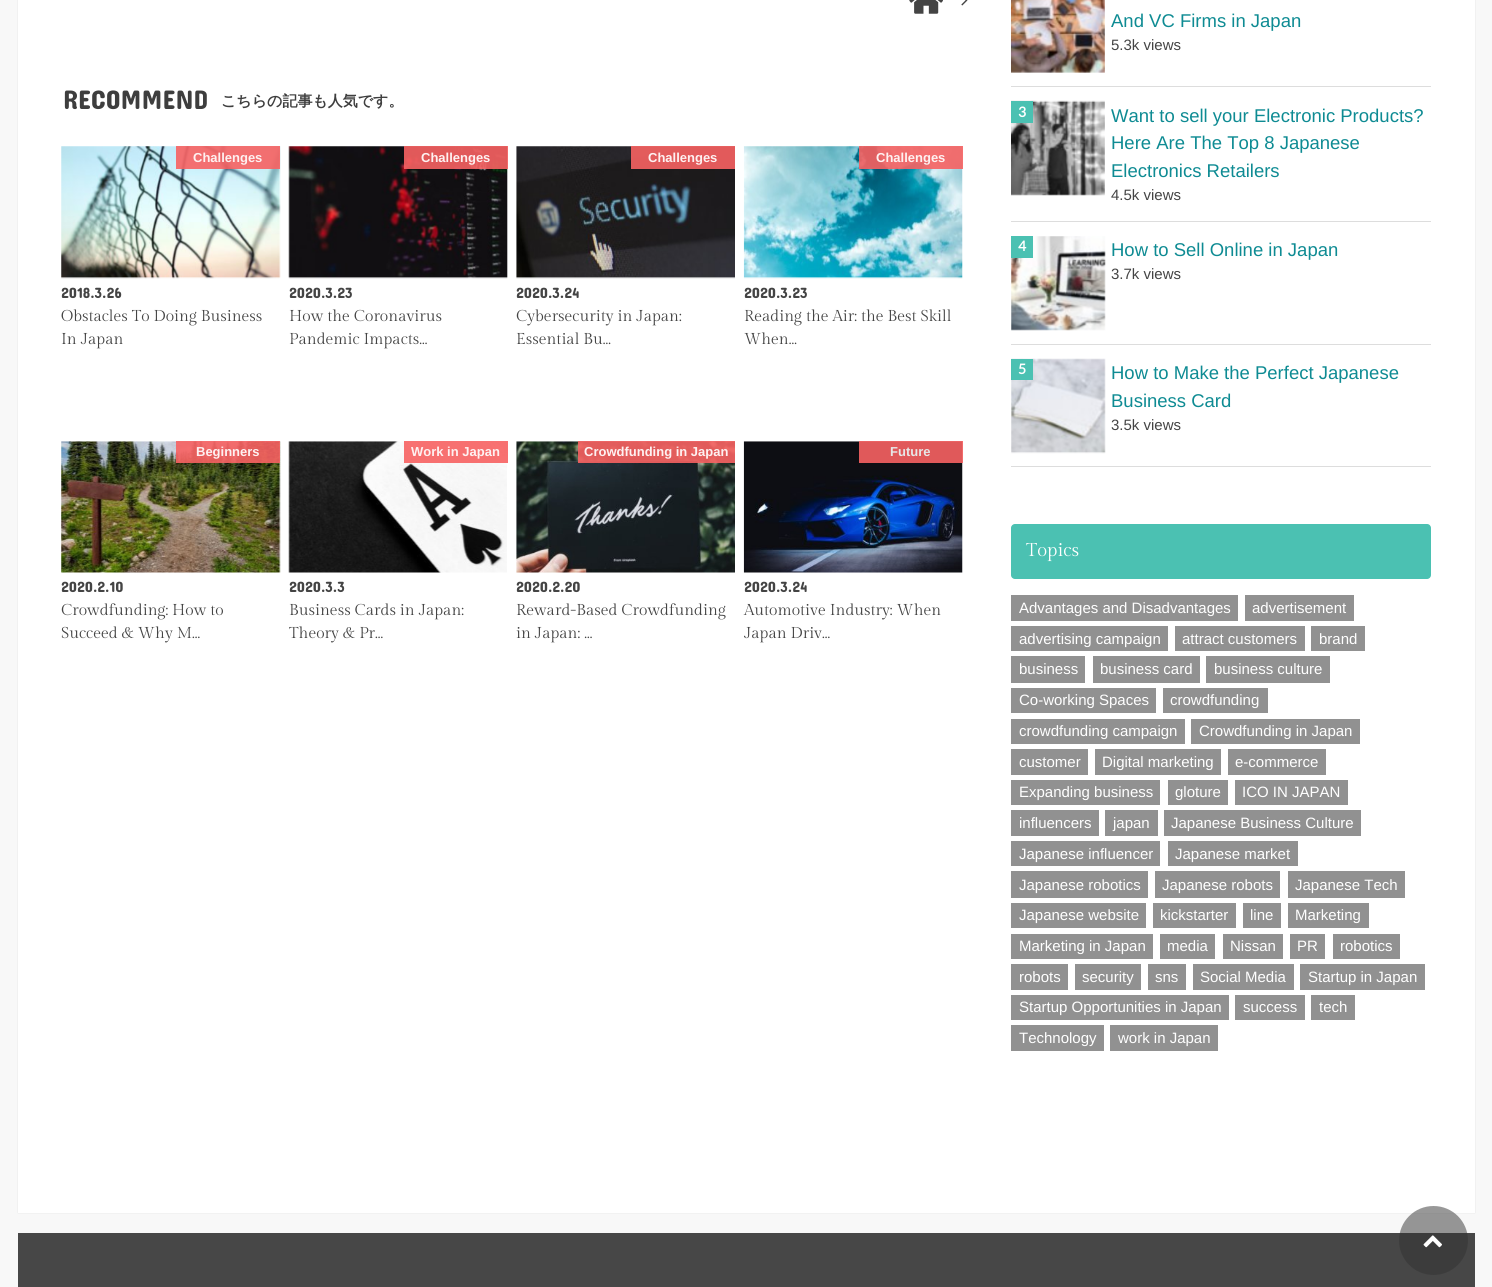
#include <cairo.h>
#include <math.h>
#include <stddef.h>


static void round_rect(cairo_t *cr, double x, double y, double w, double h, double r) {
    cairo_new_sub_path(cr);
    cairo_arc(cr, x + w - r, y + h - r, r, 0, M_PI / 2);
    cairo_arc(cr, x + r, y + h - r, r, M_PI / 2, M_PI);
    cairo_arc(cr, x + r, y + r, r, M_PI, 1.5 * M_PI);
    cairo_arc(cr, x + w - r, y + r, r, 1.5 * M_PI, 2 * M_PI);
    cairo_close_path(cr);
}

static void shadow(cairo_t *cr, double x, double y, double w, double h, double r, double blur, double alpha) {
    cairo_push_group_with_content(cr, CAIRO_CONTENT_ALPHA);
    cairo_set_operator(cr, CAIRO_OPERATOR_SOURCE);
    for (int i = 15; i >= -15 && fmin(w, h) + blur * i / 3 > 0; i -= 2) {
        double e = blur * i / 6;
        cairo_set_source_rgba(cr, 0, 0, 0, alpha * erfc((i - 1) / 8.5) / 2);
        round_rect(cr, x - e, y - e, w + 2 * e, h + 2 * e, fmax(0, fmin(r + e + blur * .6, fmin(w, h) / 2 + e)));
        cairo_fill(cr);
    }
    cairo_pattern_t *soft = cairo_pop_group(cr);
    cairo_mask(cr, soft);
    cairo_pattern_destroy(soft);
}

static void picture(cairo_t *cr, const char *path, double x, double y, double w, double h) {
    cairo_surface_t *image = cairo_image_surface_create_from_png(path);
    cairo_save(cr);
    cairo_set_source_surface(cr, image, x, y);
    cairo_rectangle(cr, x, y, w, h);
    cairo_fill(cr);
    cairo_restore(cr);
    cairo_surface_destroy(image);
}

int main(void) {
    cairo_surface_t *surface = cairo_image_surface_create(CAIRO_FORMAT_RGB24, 1492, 1287);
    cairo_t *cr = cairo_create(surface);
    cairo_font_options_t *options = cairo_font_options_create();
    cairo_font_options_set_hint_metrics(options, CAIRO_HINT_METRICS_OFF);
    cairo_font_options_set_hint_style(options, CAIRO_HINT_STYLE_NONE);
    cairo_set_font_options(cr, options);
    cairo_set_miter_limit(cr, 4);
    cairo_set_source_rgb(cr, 0.969, 0.969, 0.969);
    cairo_paint(cr);
    cairo_set_source_rgb(cr, 0.867, 0.867, 0.867);
    shadow(cr, 18, -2, 1457, 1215, 0, 0.5, 1);
    cairo_set_source_rgb(cr, 1, 1, 1);
    cairo_rectangle(cr, 18, 0, 1457, 1213);
    cairo_fill(cr);
    picture(cr, "img1.png", 909, 0, 34, 14);
    picture(cr, "img2.png", 961, 0, 7, 6);
    cairo_select_font_face(cr, "Concert One", CAIRO_FONT_SLANT_NORMAL, CAIRO_FONT_WEIGHT_NORMAL);
    cairo_set_font_size(cr, 27);
    cairo_set_source_rgb(cr, 0.243, 0.243, 0.243);
    cairo_move_to(cr, 63, 109);
    cairo_show_text(cr, "RECOMMEND");
    cairo_select_font_face(cr, "WenQuanYi Zen Hei", CAIRO_FONT_SLANT_NORMAL, CAIRO_FONT_WEIGHT_BOLD);
    cairo_set_font_size(cr, 15);
    cairo_move_to(cr, 221, 106);
    cairo_show_text(cr, "こちらの記事も人気です。");
    picture(cr, "img3.png", 61, 146, 220, 133);
    cairo_set_source_rgba(cr, 0.969, 0.384, 0.384, 0.9);
    cairo_rectangle(cr, 176, 146, 104, 23);
    cairo_fill(cr);
    cairo_select_font_face(cr, "Liberation Sans", CAIRO_FONT_SLANT_NORMAL, CAIRO_FONT_WEIGHT_BOLD);
    cairo_set_font_size(cr, 13);
    cairo_set_source_rgb(cr, 0.996, 0.945, 0.945);
    cairo_move_to(cr, 193, 162);
    cairo_show_text(cr, "Challenges");
    cairo_select_font_face(cr, "Concert One", CAIRO_FONT_SLANT_NORMAL, CAIRO_FONT_WEIGHT_NORMAL);
    cairo_set_font_size(cr, 15);
    cairo_set_source_rgb(cr, 0.267, 0.267, 0.267);
    cairo_move_to(cr, 61, 298);
    cairo_show_text(cr, "2018.3.26");
    cairo_select_font_face(cr, "Gilda Display", CAIRO_FONT_SLANT_NORMAL, CAIRO_FONT_WEIGHT_NORMAL);
    cairo_set_font_size(cr, 15.75);
    cairo_move_to(cr, 61, 321);
    cairo_show_text(cr, "Obstacles To Doing Business");
    cairo_move_to(cr, 61, 344);
    cairo_show_text(cr, "In Japan");
    picture(cr, "img4.png", 288, 146, 220, 133);
    cairo_set_source_rgba(cr, 0.969, 0.384, 0.384, 0.9);
    cairo_rectangle(cr, 404, 146, 104, 23);
    cairo_fill(cr);
    cairo_select_font_face(cr, "Liberation Sans", CAIRO_FONT_SLANT_NORMAL, CAIRO_FONT_WEIGHT_BOLD);
    cairo_set_font_size(cr, 13);
    cairo_set_source_rgb(cr, 0.996, 0.945, 0.945);
    cairo_move_to(cr, 421, 162);
    cairo_show_text(cr, "Challenges");
    cairo_select_font_face(cr, "Concert One", CAIRO_FONT_SLANT_NORMAL, CAIRO_FONT_WEIGHT_NORMAL);
    cairo_set_font_size(cr, 15);
    cairo_set_source_rgb(cr, 0.267, 0.267, 0.267);
    cairo_move_to(cr, 289, 298);
    cairo_show_text(cr, "2020.3.23");
    cairo_select_font_face(cr, "Gilda Display", CAIRO_FONT_SLANT_NORMAL, CAIRO_FONT_WEIGHT_NORMAL);
    cairo_set_font_size(cr, 15.75);
    cairo_move_to(cr, 289, 321);
    cairo_show_text(cr, "How the Coronavirus");
    cairo_move_to(cr, 289, 344);
    cairo_show_text(cr, "Pandemic Impacts…");
    picture(cr, "img5.png", 516, 146, 219, 133);
    cairo_set_source_rgba(cr, 0.969, 0.384, 0.384, 0.9);
    cairo_rectangle(cr, 631, 146, 104, 23);
    cairo_fill(cr);
    cairo_select_font_face(cr, "Liberation Sans", CAIRO_FONT_SLANT_NORMAL, CAIRO_FONT_WEIGHT_BOLD);
    cairo_set_font_size(cr, 13);
    cairo_set_source_rgb(cr, 0.996, 0.945, 0.945);
    cairo_move_to(cr, 648, 162);
    cairo_show_text(cr, "Challenges");
    cairo_select_font_face(cr, "Concert One", CAIRO_FONT_SLANT_NORMAL, CAIRO_FONT_WEIGHT_NORMAL);
    cairo_set_font_size(cr, 15);
    cairo_set_source_rgb(cr, 0.267, 0.267, 0.267);
    cairo_move_to(cr, 516, 298);
    cairo_show_text(cr, "2020.3.24");
    cairo_select_font_face(cr, "Gilda Display", CAIRO_FONT_SLANT_NORMAL, CAIRO_FONT_WEIGHT_NORMAL);
    cairo_set_font_size(cr, 15.75);
    cairo_move_to(cr, 516, 321);
    cairo_show_text(cr, "Cybersecurity in Japan:");
    cairo_move_to(cr, 516, 344);
    cairo_show_text(cr, "Essential Bu…");
    picture(cr, "img6.png", 743, 146, 220, 133);
    cairo_set_source_rgba(cr, 0.969, 0.384, 0.384, 0.9);
    cairo_rectangle(cr, 859, 146, 104, 23);
    cairo_fill(cr);
    cairo_select_font_face(cr, "Liberation Sans", CAIRO_FONT_SLANT_NORMAL, CAIRO_FONT_WEIGHT_BOLD);
    cairo_set_font_size(cr, 13);
    cairo_set_source_rgb(cr, 0.996, 0.945, 0.945);
    cairo_move_to(cr, 876, 162);
    cairo_show_text(cr, "Challenges");
    cairo_select_font_face(cr, "Concert One", CAIRO_FONT_SLANT_NORMAL, CAIRO_FONT_WEIGHT_NORMAL);
    cairo_set_font_size(cr, 15);
    cairo_set_source_rgb(cr, 0.267, 0.267, 0.267);
    cairo_move_to(cr, 744, 298);
    cairo_show_text(cr, "2020.3.23");
    cairo_select_font_face(cr, "Gilda Display", CAIRO_FONT_SLANT_NORMAL, CAIRO_FONT_WEIGHT_NORMAL);
    cairo_set_font_size(cr, 15.75);
    cairo_move_to(cr, 744, 321);
    cairo_show_text(cr, "Reading the Air: the Best Skill");
    cairo_move_to(cr, 744, 344);
    cairo_show_text(cr, "When…");
    picture(cr, "img7.png", 61, 441, 220, 132);
    cairo_set_source_rgba(cr, 0.969, 0.384, 0.384, 0.9);
    cairo_rectangle(cr, 176, 441, 104, 22);
    cairo_fill(cr);
    cairo_select_font_face(cr, "Liberation Sans", CAIRO_FONT_SLANT_NORMAL, CAIRO_FONT_WEIGHT_BOLD);
    cairo_set_font_size(cr, 13);
    cairo_set_source_rgb(cr, 0.996, 0.945, 0.945);
    cairo_move_to(cr, 196, 456);
    cairo_show_text(cr, "Beginners");
    cairo_select_font_face(cr, "Concert One", CAIRO_FONT_SLANT_NORMAL, CAIRO_FONT_WEIGHT_NORMAL);
    cairo_set_font_size(cr, 15);
    cairo_set_source_rgb(cr, 0.267, 0.267, 0.267);
    cairo_move_to(cr, 61, 592);
    cairo_show_text(cr, "2020.2.10");
    cairo_select_font_face(cr, "Gilda Display", CAIRO_FONT_SLANT_NORMAL, CAIRO_FONT_WEIGHT_NORMAL);
    cairo_set_font_size(cr, 15.75);
    cairo_move_to(cr, 61, 615);
    cairo_show_text(cr, "Crowdfunding: How to");
    cairo_move_to(cr, 61, 638);
    cairo_show_text(cr, "Succeed & Why M…");
    picture(cr, "img8.png", 288, 441, 219, 132);
    cairo_set_source_rgba(cr, 0.969, 0.384, 0.384, 0.9);
    cairo_rectangle(cr, 404, 441, 104, 22);
    cairo_fill(cr);
    cairo_select_font_face(cr, "Liberation Sans", CAIRO_FONT_SLANT_NORMAL, CAIRO_FONT_WEIGHT_BOLD);
    cairo_set_font_size(cr, 13);
    cairo_set_source_rgb(cr, 0.996, 0.945, 0.945);
    cairo_move_to(cr, 411, 456);
    cairo_show_text(cr, "Work in Japan");
    cairo_select_font_face(cr, "Concert One", CAIRO_FONT_SLANT_NORMAL, CAIRO_FONT_WEIGHT_NORMAL);
    cairo_set_font_size(cr, 15);
    cairo_set_source_rgb(cr, 0.267, 0.267, 0.267);
    cairo_move_to(cr, 289, 592);
    cairo_show_text(cr, "2020.3.3");
    cairo_select_font_face(cr, "Gilda Display", CAIRO_FONT_SLANT_NORMAL, CAIRO_FONT_WEIGHT_NORMAL);
    cairo_set_font_size(cr, 15.75);
    cairo_move_to(cr, 289, 615);
    cairo_show_text(cr, "Business Cards in Japan:");
    cairo_move_to(cr, 289, 638);
    cairo_show_text(cr, "Theory & Pr…");
    picture(cr, "img9.png", 516, 441, 219, 132);
    cairo_set_source_rgba(cr, 0.969, 0.384, 0.384, 0.9);
    cairo_rectangle(cr, 578, 441, 157, 22);
    cairo_fill(cr);
    cairo_select_font_face(cr, "Liberation Sans", CAIRO_FONT_SLANT_NORMAL, CAIRO_FONT_WEIGHT_BOLD);
    cairo_set_font_size(cr, 13);
    cairo_set_source_rgb(cr, 0.996, 0.945, 0.945);
    cairo_move_to(cr, 584, 456);
    cairo_show_text(cr, "Crowdfunding in Japan");
    cairo_select_font_face(cr, "Concert One", CAIRO_FONT_SLANT_NORMAL, CAIRO_FONT_WEIGHT_NORMAL);
    cairo_set_font_size(cr, 15);
    cairo_set_source_rgb(cr, 0.267, 0.267, 0.267);
    cairo_move_to(cr, 516, 592);
    cairo_show_text(cr, "2020.2.20");
    cairo_select_font_face(cr, "Gilda Display", CAIRO_FONT_SLANT_NORMAL, CAIRO_FONT_WEIGHT_NORMAL);
    cairo_set_font_size(cr, 15.75);
    cairo_move_to(cr, 516, 615);
    cairo_show_text(cr, "Reward-Based Crowdfunding");
    cairo_move_to(cr, 516, 638);
    cairo_show_text(cr, "in Japan: …");
    picture(cr, "img10.png", 743, 441, 220, 132);
    cairo_set_source_rgba(cr, 0.969, 0.384, 0.384, 0.9);
    cairo_rectangle(cr, 859, 441, 104, 22);
    cairo_fill(cr);
    cairo_select_font_face(cr, "Liberation Sans", CAIRO_FONT_SLANT_NORMAL, CAIRO_FONT_WEIGHT_BOLD);
    cairo_set_font_size(cr, 13);
    cairo_set_source_rgb(cr, 0.906, 0.906, 0.906);
    cairo_move_to(cr, 890, 456);
    cairo_show_text(cr, "Future");
    cairo_select_font_face(cr, "Concert One", CAIRO_FONT_SLANT_NORMAL, CAIRO_FONT_WEIGHT_NORMAL);
    cairo_set_font_size(cr, 15);
    cairo_set_source_rgb(cr, 0.267, 0.267, 0.267);
    cairo_move_to(cr, 744, 592);
    cairo_show_text(cr, "2020.3.24");
    cairo_select_font_face(cr, "Gilda Display", CAIRO_FONT_SLANT_NORMAL, CAIRO_FONT_WEIGHT_NORMAL);
    cairo_set_font_size(cr, 15.75);
    cairo_move_to(cr, 744, 615);
    cairo_show_text(cr, "Automotive Industry: When");
    cairo_move_to(cr, 744, 638);
    cairo_show_text(cr, "Japan Driv…");
    cairo_set_source_rgb(cr, 0.867, 0.867, 0.867);
    cairo_rectangle(cr, 1011, 86, 420, 1);
    cairo_fill(cr);
    picture(cr, "img11.png", 1011, 0, 94, 73);
    cairo_select_font_face(cr, "Liberation Sans", CAIRO_FONT_SLANT_NORMAL, CAIRO_FONT_WEIGHT_NORMAL);
    cairo_set_font_size(cr, 18.5);
    cairo_set_source_rgb(cr, 0.055, 0.545, 0.576);
    cairo_move_to(cr, 1111, 27);
    cairo_show_text(cr, "And VC Firms in Japan");
    cairo_set_font_size(cr, 15);
    cairo_set_source_rgb(cr, 0.267, 0.267, 0.267);
    cairo_move_to(cr, 1111, 50);
    cairo_show_text(cr, "5.3k views");
    cairo_set_source_rgb(cr, 0.867, 0.867, 0.867);
    cairo_rectangle(cr, 1011, 221, 420, 1);
    cairo_fill(cr);
    picture(cr, "img12.png", 1011, 100, 94, 96);
    cairo_set_source_rgb(cr, 0.294, 0.757, 0.698);
    cairo_rectangle(cr, 1011, 101, 22, 22);
    cairo_fill(cr);
    cairo_select_font_face(cr, "Lato", CAIRO_FONT_SLANT_NORMAL, CAIRO_FONT_WEIGHT_BOLD);
    cairo_set_font_size(cr, 14);
    cairo_set_source_rgb(cr, 1, 1, 1);
    cairo_move_to(cr, 1018, 117);
    cairo_show_text(cr, "3");
    cairo_select_font_face(cr, "Liberation Sans", CAIRO_FONT_SLANT_NORMAL, CAIRO_FONT_WEIGHT_NORMAL);
    cairo_set_font_size(cr, 18.5);
    cairo_set_source_rgb(cr, 0.055, 0.545, 0.576);
    cairo_move_to(cr, 1111, 122);
    cairo_show_text(cr, "Want to sell your Electronic Products?");
    cairo_move_to(cr, 1111, 149);
    cairo_show_text(cr, "Here Are The Top 8 Japanese");
    cairo_move_to(cr, 1111, 177);
    cairo_show_text(cr, "Electronics Retailers");
    cairo_set_font_size(cr, 15);
    cairo_set_source_rgb(cr, 0.267, 0.267, 0.267);
    cairo_move_to(cr, 1111, 200);
    cairo_show_text(cr, "4.5k views");
    cairo_set_source_rgb(cr, 0.867, 0.867, 0.867);
    cairo_rectangle(cr, 1011, 344, 420, 1);
    cairo_fill(cr);
    picture(cr, "img13.png", 1011, 236, 95, 95);
    cairo_set_source_rgb(cr, 0.294, 0.757, 0.698);
    cairo_rectangle(cr, 1011, 236, 22, 22);
    cairo_fill(cr);
    cairo_select_font_face(cr, "Lato", CAIRO_FONT_SLANT_NORMAL, CAIRO_FONT_WEIGHT_BOLD);
    cairo_set_font_size(cr, 14);
    cairo_set_source_rgb(cr, 1, 1, 1);
    cairo_move_to(cr, 1018, 251);
    cairo_show_text(cr, "4");
    cairo_select_font_face(cr, "Liberation Sans", CAIRO_FONT_SLANT_NORMAL, CAIRO_FONT_WEIGHT_NORMAL);
    cairo_set_font_size(cr, 18.5);
    cairo_set_source_rgb(cr, 0.055, 0.545, 0.576);
    cairo_move_to(cr, 1111, 256);
    cairo_show_text(cr, "How to Sell Online in Japan");
    cairo_set_font_size(cr, 15);
    cairo_set_source_rgb(cr, 0.267, 0.267, 0.267);
    cairo_move_to(cr, 1111, 279);
    cairo_show_text(cr, "3.7k views");
    cairo_set_source_rgb(cr, 0.867, 0.867, 0.867);
    cairo_rectangle(cr, 1011, 466, 420, 1);
    cairo_fill(cr);
    picture(cr, "img14.png", 1011, 358, 95, 96);
    cairo_set_source_rgb(cr, 0.294, 0.757, 0.698);
    cairo_rectangle(cr, 1011, 359, 22, 21);
    cairo_fill(cr);
    cairo_select_font_face(cr, "Lato", CAIRO_FONT_SLANT_NORMAL, CAIRO_FONT_WEIGHT_BOLD);
    cairo_set_font_size(cr, 14);
    cairo_set_source_rgb(cr, 1, 1, 1);
    cairo_move_to(cr, 1018, 374);
    cairo_show_text(cr, "5");
    cairo_select_font_face(cr, "Liberation Sans", CAIRO_FONT_SLANT_NORMAL, CAIRO_FONT_WEIGHT_NORMAL);
    cairo_set_font_size(cr, 18.5);
    cairo_set_source_rgb(cr, 0.055, 0.545, 0.576);
    cairo_move_to(cr, 1111, 379);
    cairo_show_text(cr, "How to Make the Perfect Japanese");
    cairo_move_to(cr, 1111, 407);
    cairo_show_text(cr, "Business Card");
    cairo_set_font_size(cr, 15);
    cairo_set_source_rgb(cr, 0.267, 0.267, 0.267);
    cairo_move_to(cr, 1111, 430);
    cairo_show_text(cr, "3.5k views");
    cairo_set_source_rgb(cr, 0.294, 0.757, 0.698);
    round_rect(cr, 1011, 524, 420, 55, 4);
    cairo_fill(cr);
    cairo_select_font_face(cr, "Gilda Display", CAIRO_FONT_SLANT_NORMAL, CAIRO_FONT_WEIGHT_NORMAL);
    cairo_set_font_size(cr, 18.5);
    cairo_set_source_rgb(cr, 1, 1, 1);
    cairo_move_to(cr, 1026, 556);
    cairo_show_text(cr, "Topics");
    cairo_set_source_rgb(cr, 0.569, 0.569, 0.569);
    cairo_rectangle(cr, 1011, 595, 227, 26);
    cairo_fill(cr);
    cairo_select_font_face(cr, "Liberation Sans", CAIRO_FONT_SLANT_NORMAL, CAIRO_FONT_WEIGHT_NORMAL);
    cairo_set_font_size(cr, 15);
    cairo_set_source_rgb(cr, 1, 1, 1);
    cairo_move_to(cr, 1019, 613);
    cairo_show_text(cr, "Advantages and Disadvantages");
    cairo_set_source_rgb(cr, 0.569, 0.569, 0.569);
    cairo_rectangle(cr, 1245, 595, 109, 26);
    cairo_fill(cr);
    cairo_set_source_rgb(cr, 1, 1, 1);
    cairo_move_to(cr, 1252, 613);
    cairo_show_text(cr, "advertisement");
    cairo_set_source_rgb(cr, 0.569, 0.569, 0.569);
    cairo_rectangle(cr, 1011, 626, 157, 25);
    cairo_fill(cr);
    cairo_set_source_rgb(cr, 1, 1, 1);
    cairo_move_to(cr, 1019, 644);
    cairo_show_text(cr, "advertising campaign");
    cairo_set_source_rgb(cr, 0.569, 0.569, 0.569);
    cairo_rectangle(cr, 1175, 626, 130, 25);
    cairo_fill(cr);
    cairo_set_source_rgb(cr, 1, 1, 1);
    cairo_move_to(cr, 1182, 644);
    cairo_show_text(cr, "attract customers");
    cairo_set_source_rgb(cr, 0.569, 0.569, 0.569);
    cairo_rectangle(cr, 1311, 626, 54, 25);
    cairo_fill(cr);
    cairo_set_source_rgb(cr, 1, 1, 1);
    cairo_move_to(cr, 1319, 644);
    cairo_show_text(cr, "brand");
    cairo_set_source_rgb(cr, 0.569, 0.569, 0.569);
    cairo_rectangle(cr, 1011, 656, 74, 27);
    cairo_fill(cr);
    cairo_set_source_rgb(cr, 1, 1, 1);
    cairo_move_to(cr, 1019, 674);
    cairo_show_text(cr, "business");
    cairo_set_source_rgb(cr, 0.569, 0.569, 0.569);
    cairo_rectangle(cr, 1093, 656, 107, 27);
    cairo_fill(cr);
    cairo_set_source_rgb(cr, 1, 1, 1);
    cairo_move_to(cr, 1100, 674);
    cairo_show_text(cr, "business card");
    cairo_set_source_rgb(cr, 0.569, 0.569, 0.569);
    cairo_rectangle(cr, 1206, 656, 124, 27);
    cairo_fill(cr);
    cairo_set_source_rgb(cr, 1, 1, 1);
    cairo_move_to(cr, 1214, 674);
    cairo_show_text(cr, "business culture");
    cairo_set_source_rgb(cr, 0.569, 0.569, 0.569);
    cairo_rectangle(cr, 1011, 688, 145, 25);
    cairo_fill(cr);
    cairo_set_source_rgb(cr, 1, 1, 1);
    cairo_move_to(cr, 1019, 705);
    cairo_show_text(cr, "Co-working Spaces");
    cairo_set_source_rgb(cr, 0.569, 0.569, 0.569);
    cairo_rectangle(cr, 1163, 688, 105, 25);
    cairo_fill(cr);
    cairo_set_source_rgb(cr, 1, 1, 1);
    cairo_move_to(cr, 1170, 705);
    cairo_show_text(cr, "crowdfunding");
    cairo_set_source_rgb(cr, 0.569, 0.569, 0.569);
    cairo_rectangle(cr, 1011, 719, 174, 25);
    cairo_fill(cr);
    cairo_set_source_rgb(cr, 1, 1, 1);
    cairo_move_to(cr, 1019, 736);
    cairo_show_text(cr, "crowdfunding campaign");
    cairo_set_source_rgb(cr, 0.569, 0.569, 0.569);
    cairo_rectangle(cr, 1191, 719, 169, 25);
    cairo_fill(cr);
    cairo_set_source_rgb(cr, 1, 1, 1);
    cairo_move_to(cr, 1199, 736);
    cairo_show_text(cr, "Crowdfunding in Japan");
    cairo_set_source_rgb(cr, 0.569, 0.569, 0.569);
    cairo_rectangle(cr, 1011, 749, 77, 26);
    cairo_fill(cr);
    cairo_set_source_rgb(cr, 1, 1, 1);
    cairo_move_to(cr, 1019, 767);
    cairo_show_text(cr, "customer");
    cairo_set_source_rgb(cr, 0.569, 0.569, 0.569);
    cairo_rectangle(cr, 1095, 749, 126, 26);
    cairo_fill(cr);
    cairo_set_source_rgb(cr, 1, 1, 1);
    cairo_move_to(cr, 1102, 767);
    cairo_show_text(cr, "Digital marketing");
    cairo_set_source_rgb(cr, 0.569, 0.569, 0.569);
    cairo_rectangle(cr, 1228, 749, 98, 26);
    cairo_fill(cr);
    cairo_set_source_rgb(cr, 1, 1, 1);
    cairo_move_to(cr, 1235, 767);
    cairo_show_text(cr, "e-commerce");
    cairo_set_source_rgb(cr, 0.569, 0.569, 0.569);
    cairo_rectangle(cr, 1011, 780, 149, 25);
    cairo_fill(cr);
    cairo_set_source_rgb(cr, 1, 1, 1);
    cairo_move_to(cr, 1019, 797);
    cairo_show_text(cr, "Expanding business");
    cairo_set_source_rgb(cr, 0.569, 0.569, 0.569);
    cairo_rectangle(cr, 1168, 780, 60, 25);
    cairo_fill(cr);
    cairo_set_source_rgb(cr, 1, 1, 1);
    cairo_move_to(cr, 1175, 797);
    cairo_show_text(cr, "gloture");
    cairo_set_source_rgb(cr, 0.569, 0.569, 0.569);
    cairo_rectangle(cr, 1235, 780, 113, 25);
    cairo_fill(cr);
    cairo_set_source_rgb(cr, 1, 1, 1);
    cairo_move_to(cr, 1242, 797);
    cairo_show_text(cr, "ICO IN JAPAN");
    cairo_set_source_rgb(cr, 0.569, 0.569, 0.569);
    cairo_rectangle(cr, 1011, 810, 88, 26);
    cairo_fill(cr);
    cairo_set_source_rgb(cr, 1, 1, 1);
    cairo_move_to(cr, 1019, 828);
    cairo_show_text(cr, "influencers");
    cairo_set_source_rgb(cr, 0.569, 0.569, 0.569);
    cairo_rectangle(cr, 1105, 810, 53, 26);
    cairo_fill(cr);
    cairo_set_source_rgb(cr, 1, 1, 1);
    cairo_move_to(cr, 1113, 828);
    cairo_show_text(cr, "japan");
    cairo_set_source_rgb(cr, 0.569, 0.569, 0.569);
    cairo_rectangle(cr, 1164, 810, 197, 26);
    cairo_fill(cr);
    cairo_set_source_rgb(cr, 1, 1, 1);
    cairo_move_to(cr, 1171, 828);
    cairo_show_text(cr, "Japanese Business Culture");
    cairo_set_source_rgb(cr, 0.569, 0.569, 0.569);
    cairo_rectangle(cr, 1011, 841, 149, 25);
    cairo_fill(cr);
    cairo_set_source_rgb(cr, 1, 1, 1);
    cairo_move_to(cr, 1019, 859);
    cairo_show_text(cr, "Japanese influencer");
    cairo_set_source_rgb(cr, 0.569, 0.569, 0.569);
    cairo_rectangle(cr, 1168, 841, 130, 25);
    cairo_fill(cr);
    cairo_set_source_rgb(cr, 1, 1, 1);
    cairo_move_to(cr, 1175, 859);
    cairo_show_text(cr, "Japanese market");
    cairo_set_source_rgb(cr, 0.569, 0.569, 0.569);
    cairo_rectangle(cr, 1011, 871, 137, 27);
    cairo_fill(cr);
    cairo_set_source_rgb(cr, 1, 1, 1);
    cairo_move_to(cr, 1019, 890);
    cairo_show_text(cr, "Japanese robotics");
    cairo_set_source_rgb(cr, 0.569, 0.569, 0.569);
    cairo_rectangle(cr, 1155, 871, 125, 27);
    cairo_fill(cr);
    cairo_set_source_rgb(cr, 1, 1, 1);
    cairo_move_to(cr, 1162, 890);
    cairo_show_text(cr, "Japanese robots");
    cairo_set_source_rgb(cr, 0.569, 0.569, 0.569);
    cairo_rectangle(cr, 1288, 871, 117, 27);
    cairo_fill(cr);
    cairo_set_source_rgb(cr, 1, 1, 1);
    cairo_move_to(cr, 1295, 890);
    cairo_show_text(cr, "Japanese Tech");
    cairo_set_source_rgb(cr, 0.569, 0.569, 0.569);
    cairo_rectangle(cr, 1011, 903, 135, 25);
    cairo_fill(cr);
    cairo_set_source_rgb(cr, 1, 1, 1);
    cairo_move_to(cr, 1019, 920);
    cairo_show_text(cr, "Japanese website");
    cairo_set_source_rgb(cr, 0.569, 0.569, 0.569);
    cairo_rectangle(cr, 1153, 903, 83, 25);
    cairo_fill(cr);
    cairo_set_source_rgb(cr, 1, 1, 1);
    cairo_move_to(cr, 1160, 920);
    cairo_show_text(cr, "kickstarter");
    cairo_set_source_rgb(cr, 0.569, 0.569, 0.569);
    cairo_rectangle(cr, 1243, 903, 38, 25);
    cairo_fill(cr);
    cairo_set_source_rgb(cr, 1, 1, 1);
    cairo_move_to(cr, 1250, 920);
    cairo_show_text(cr, "line");
    cairo_set_source_rgb(cr, 0.569, 0.569, 0.569);
    cairo_rectangle(cr, 1288, 903, 81, 25);
    cairo_fill(cr);
    cairo_set_source_rgb(cr, 1, 1, 1);
    cairo_move_to(cr, 1295, 920);
    cairo_show_text(cr, "Marketing");
    cairo_set_source_rgb(cr, 0.569, 0.569, 0.569);
    cairo_rectangle(cr, 1011, 934, 142, 25);
    cairo_fill(cr);
    cairo_set_source_rgb(cr, 1, 1, 1);
    cairo_move_to(cr, 1019, 951);
    cairo_show_text(cr, "Marketing in Japan");
    cairo_set_source_rgb(cr, 0.569, 0.569, 0.569);
    cairo_rectangle(cr, 1160, 934, 55, 25);
    cairo_fill(cr);
    cairo_set_source_rgb(cr, 1, 1, 1);
    cairo_move_to(cr, 1167, 951);
    cairo_show_text(cr, "media");
    cairo_set_source_rgb(cr, 0.569, 0.569, 0.569);
    cairo_rectangle(cr, 1223, 934, 60, 25);
    cairo_fill(cr);
    cairo_set_source_rgb(cr, 1, 1, 1);
    cairo_move_to(cr, 1230, 951);
    cairo_show_text(cr, "Nissan");
    cairo_set_source_rgb(cr, 0.569, 0.569, 0.569);
    cairo_rectangle(cr, 1290, 934, 35, 25);
    cairo_fill(cr);
    cairo_set_source_rgb(cr, 1, 1, 1);
    cairo_move_to(cr, 1297, 951);
    cairo_show_text(cr, "PR");
    cairo_set_source_rgb(cr, 0.569, 0.569, 0.569);
    cairo_rectangle(cr, 1333, 934, 67, 25);
    cairo_fill(cr);
    cairo_set_source_rgb(cr, 1, 1, 1);
    cairo_move_to(cr, 1340, 951);
    cairo_show_text(cr, "robotics");
    cairo_set_source_rgb(cr, 0.569, 0.569, 0.569);
    cairo_rectangle(cr, 1011, 964, 57, 26);
    cairo_fill(cr);
    cairo_set_source_rgb(cr, 1, 1, 1);
    cairo_move_to(cr, 1019, 982);
    cairo_show_text(cr, "robots");
    cairo_set_source_rgb(cr, 0.569, 0.569, 0.569);
    cairo_rectangle(cr, 1075, 964, 66, 26);
    cairo_fill(cr);
    cairo_set_source_rgb(cr, 1, 1, 1);
    cairo_move_to(cr, 1082, 982);
    cairo_show_text(cr, "security");
    cairo_set_source_rgb(cr, 0.569, 0.569, 0.569);
    cairo_rectangle(cr, 1148, 964, 38, 26);
    cairo_fill(cr);
    cairo_set_source_rgb(cr, 1, 1, 1);
    cairo_move_to(cr, 1155, 982);
    cairo_show_text(cr, "sns");
    cairo_set_source_rgb(cr, 0.569, 0.569, 0.569);
    cairo_rectangle(cr, 1193, 964, 101, 26);
    cairo_fill(cr);
    cairo_set_source_rgb(cr, 1, 1, 1);
    cairo_move_to(cr, 1200, 982);
    cairo_show_text(cr, "Social Media");
    cairo_set_source_rgb(cr, 0.569, 0.569, 0.569);
    cairo_rectangle(cr, 1300, 964, 125, 26);
    cairo_fill(cr);
    cairo_set_source_rgb(cr, 1, 1, 1);
    cairo_move_to(cr, 1308, 982);
    cairo_show_text(cr, "Startup in Japan");
    cairo_set_source_rgb(cr, 0.569, 0.569, 0.569);
    cairo_rectangle(cr, 1011, 995, 218, 25);
    cairo_fill(cr);
    cairo_set_source_rgb(cr, 1, 1, 1);
    cairo_move_to(cr, 1019, 1012);
    cairo_show_text(cr, "Startup Opportunities in Japan");
    cairo_set_source_rgb(cr, 0.569, 0.569, 0.569);
    cairo_rectangle(cr, 1235, 995, 70, 25);
    cairo_fill(cr);
    cairo_set_source_rgb(cr, 1, 1, 1);
    cairo_move_to(cr, 1243, 1012);
    cairo_show_text(cr, "success");
    cairo_set_source_rgb(cr, 0.569, 0.569, 0.569);
    cairo_rectangle(cr, 1311, 995, 44, 25);
    cairo_fill(cr);
    cairo_set_source_rgb(cr, 1, 1, 1);
    cairo_move_to(cr, 1319, 1012);
    cairo_show_text(cr, "tech");
    cairo_set_source_rgb(cr, 0.569, 0.569, 0.569);
    cairo_rectangle(cr, 1011, 1025, 93, 26);
    cairo_fill(cr);
    cairo_set_source_rgb(cr, 1, 1, 1);
    cairo_move_to(cr, 1019, 1043);
    cairo_show_text(cr, "Technology");
    cairo_set_source_rgb(cr, 0.569, 0.569, 0.569);
    cairo_rectangle(cr, 1110, 1025, 108, 26);
    cairo_fill(cr);
    cairo_set_source_rgb(cr, 1, 1, 1);
    cairo_move_to(cr, 1118, 1043);
    cairo_show_text(cr, "work in Japan");
    cairo_set_source_rgb(cr, 0.278, 0.278, 0.278);
    cairo_rectangle(cr, 18, 1233, 1457, 54);
    cairo_fill(cr);
    cairo_set_source_rgba(cr, 0.2, 0.2, 0.2, 0.5);
    cairo_arc(cr, 1433.5, 1240.5, 34.5, 0, 2 * M_PI);
    cairo_fill(cr);
    picture(cr, "img15.png", 1423, 1235, 19, 13);
    cairo_surface_write_to_png(surface, "page.png");
    cairo_font_options_destroy(options);
    cairo_destroy(cr);
    cairo_surface_destroy(surface);
    return 0;
}
